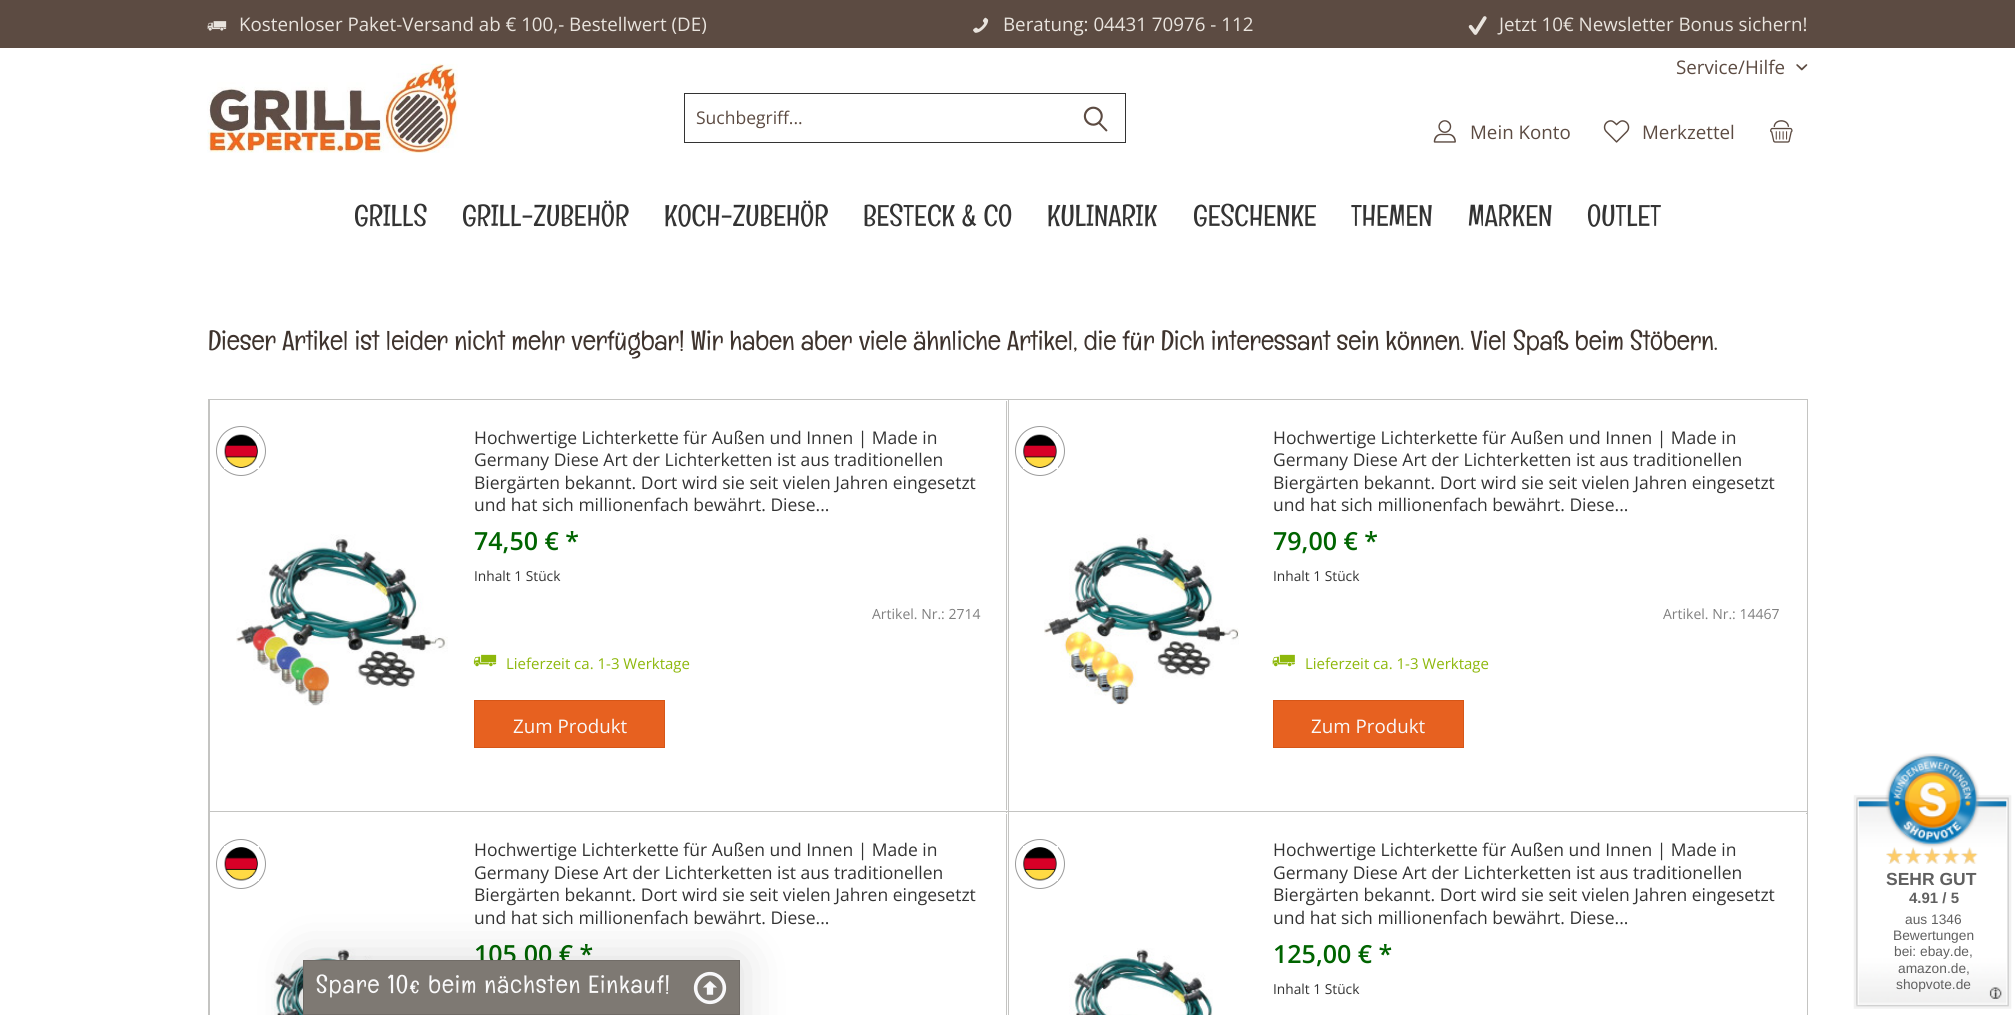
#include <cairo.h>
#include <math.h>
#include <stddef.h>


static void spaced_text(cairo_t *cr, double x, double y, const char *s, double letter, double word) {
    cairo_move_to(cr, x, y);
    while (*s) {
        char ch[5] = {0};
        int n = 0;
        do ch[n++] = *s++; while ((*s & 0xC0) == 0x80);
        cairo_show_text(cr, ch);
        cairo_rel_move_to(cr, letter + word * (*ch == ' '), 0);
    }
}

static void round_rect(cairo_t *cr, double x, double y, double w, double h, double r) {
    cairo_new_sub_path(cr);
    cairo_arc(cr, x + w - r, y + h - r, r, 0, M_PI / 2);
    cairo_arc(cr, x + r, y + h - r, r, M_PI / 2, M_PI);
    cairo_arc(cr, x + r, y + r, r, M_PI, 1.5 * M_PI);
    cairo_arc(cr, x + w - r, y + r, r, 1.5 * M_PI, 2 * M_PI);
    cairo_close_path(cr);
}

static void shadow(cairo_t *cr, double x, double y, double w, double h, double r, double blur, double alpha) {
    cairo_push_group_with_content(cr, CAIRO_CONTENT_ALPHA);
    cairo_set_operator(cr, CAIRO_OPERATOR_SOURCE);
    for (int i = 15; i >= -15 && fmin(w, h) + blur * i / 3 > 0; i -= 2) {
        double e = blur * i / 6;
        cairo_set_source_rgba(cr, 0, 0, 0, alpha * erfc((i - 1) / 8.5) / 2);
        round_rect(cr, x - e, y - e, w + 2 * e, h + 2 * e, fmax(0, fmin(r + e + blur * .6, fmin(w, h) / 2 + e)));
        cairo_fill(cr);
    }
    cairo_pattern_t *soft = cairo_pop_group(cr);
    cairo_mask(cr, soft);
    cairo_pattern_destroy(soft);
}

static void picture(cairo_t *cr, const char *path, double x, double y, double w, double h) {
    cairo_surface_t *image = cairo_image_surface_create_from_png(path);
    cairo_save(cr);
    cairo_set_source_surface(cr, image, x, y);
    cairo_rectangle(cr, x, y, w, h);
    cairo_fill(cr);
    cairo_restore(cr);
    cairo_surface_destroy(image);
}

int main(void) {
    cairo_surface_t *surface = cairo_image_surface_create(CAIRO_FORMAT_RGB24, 2015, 1015);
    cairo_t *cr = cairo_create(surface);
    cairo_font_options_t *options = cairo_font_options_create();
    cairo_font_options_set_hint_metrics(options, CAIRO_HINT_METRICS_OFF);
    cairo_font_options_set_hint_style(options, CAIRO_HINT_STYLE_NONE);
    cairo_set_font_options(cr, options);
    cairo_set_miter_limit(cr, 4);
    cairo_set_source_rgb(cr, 1, 1, 1);
    cairo_paint(cr);
    cairo_set_source_rgb(cr, 0.361, 0.294, 0.259);
    cairo_rectangle(cr, 0, 0, 2015, 48);
    cairo_fill(cr);
    picture(cr, "img1.png", 207, 21, 20, 10);
    cairo_select_font_face(cr, "Open Sans", CAIRO_FONT_SLANT_NORMAL, CAIRO_FONT_WEIGHT_NORMAL);
    cairo_set_font_size(cr, 18.75);
    cairo_set_source_rgb(cr, 0.914, 0.894, 0.871);
    cairo_move_to(cr, 239, 31);
    cairo_show_text(cr, "Kostenloser Paket-Versand ab € 100,- Bestellwert (DE)");
    picture(cr, "img2.png", 973, 17, 16, 16);
    cairo_move_to(cr, 1003, 31);
    cairo_show_text(cr, "Beratung: 04431 70976 - 112");
    picture(cr, "img3.png", 1468, 16, 19, 19);
    cairo_move_to(cr, 1499, 31);
    cairo_show_text(cr, "Jetzt 10€ Newsletter Bonus sichern!");
    cairo_set_source_rgb(cr, 0.361, 0.294, 0.259);
    cairo_move_to(cr, 1676, 74);
    cairo_show_text(cr, "Service/Hilfe");
    picture(cr, "img4.png", 1796, 64, 12, 7);
    picture(cr, "img5.png", 207, 63, 251, 90);
    cairo_rectangle(cr, 684.5, 93.5, 441, 49);
    cairo_set_source_rgb(cr, 0.2, 0.2, 0.2);
    cairo_set_line_width(cr, 1);
    cairo_stroke(cr);
    cairo_set_font_size(cr, 17.5);
    cairo_set_source_rgb(cr, 0.361, 0.294, 0.259);
    cairo_move_to(cr, 696, 124);
    cairo_show_text(cr, "Suchbegriff...");
    picture(cr, "img6.png", 1083, 106, 25, 26);
    picture(cr, "img7.png", 1433, 120, 23, 23);
    cairo_set_font_size(cr, 18.75);
    cairo_move_to(cr, 1470, 139);
    cairo_show_text(cr, "Mein Konto");
    picture(cr, "img8.png", 1603, 120, 27, 23);
    cairo_move_to(cr, 1642, 139);
    cairo_show_text(cr, "Merkzettel");
    picture(cr, "img9.png", 1770, 120, 23, 23);
    cairo_select_font_face(cr, "Englebert", CAIRO_FONT_SLANT_NORMAL, CAIRO_FONT_WEIGHT_NORMAL);
    cairo_set_font_size(cr, 30);
    cairo_set_source_rgb(cr, 0.2, 0.2, 0.2);
    cairo_move_to(cr, 354, 226);
    cairo_show_text(cr, "GRILLS");
    cairo_move_to(cr, 462, 226);
    cairo_show_text(cr, "GRILL-ZUBEHÖR");
    cairo_move_to(cr, 664, 226);
    cairo_show_text(cr, "KOCH-ZUBEHÖR");
    cairo_move_to(cr, 863, 226);
    cairo_show_text(cr, "BESTECK & CO");
    cairo_move_to(cr, 1047, 226);
    cairo_show_text(cr, "KULINARIK");
    cairo_move_to(cr, 1193, 226);
    cairo_show_text(cr, "GESCHENKE");
    cairo_move_to(cr, 1351, 226);
    cairo_show_text(cr, "THEMEN");
    cairo_move_to(cr, 1468, 226);
    cairo_show_text(cr, "MARKEN");
    cairo_move_to(cr, 1587, 226);
    cairo_show_text(cr, "OUTLET");
    cairo_set_font_size(cr, 27.5);
    cairo_set_source_rgb(cr, 0.243, 0.2, 0.176);
    cairo_move_to(cr, 208, 350);
    cairo_show_text(cr, "Dieser Artikel ist leider nicht mehr verfügbar! Wir haben aber viele ähnliche Artikel, die für Dich interessant sein können. Viel Spaß beim Stöbern.");
    cairo_set_source_rgb(cr, 0.769, 0.769, 0.761);
    cairo_rectangle(cr, 209, 400, 1, 413);
    cairo_fill(cr);
    cairo_rectangle(cr, 208.5, 399.5, 800, 414);
    cairo_stroke(cr);
    cairo_rectangle(cr, 1006.5, 399.5, 801, 414);
    cairo_stroke(cr);
    cairo_rectangle(cr, 210.5, 400.5, 797, 410);
    cairo_set_source_rgb(cr, 1, 1, 1);
    cairo_stroke(cr);
    cairo_arc(cr, 241, 451, 24.5, 0, 2 * M_PI);
    cairo_set_source_rgb(cr, 0.608, 0.608, 0.608);
    cairo_stroke(cr);
    cairo_set_source_rgb(cr, 1, 1, 1);
    cairo_rectangle(cr, 224, 434, 35, 35);
    cairo_fill(cr);
    picture(cr, "img10.png", 224, 434, 34, 34);
    cairo_select_font_face(cr, "Open Sans", CAIRO_FONT_SLANT_NORMAL, CAIRO_FONT_WEIGHT_NORMAL);
    cairo_set_font_size(cr, 17.5);
    cairo_set_source_rgb(cr, 0.2, 0.2, 0.2);
    cairo_move_to(cr, 474, 444);
    cairo_show_text(cr, "Hochwertige Lichterkette für Außen und Innen | Made in");
    cairo_move_to(cr, 474, 466);
    cairo_show_text(cr, "Germany Diese Art der Lichterketten ist aus traditionellen");
    cairo_move_to(cr, 474, 489);
    cairo_show_text(cr, "Biergärten bekannt. Dort wird sie seit vielen Jahren eingesetzt");
    cairo_move_to(cr, 474, 511);
    cairo_show_text(cr, "und hat sich millionenfach bewährt. Diese...");
    picture(cr, "img11.png", 236, 534, 212, 172);
    cairo_select_font_face(cr, "Open Sans SemiBold", CAIRO_FONT_SLANT_NORMAL, CAIRO_FONT_WEIGHT_NORMAL);
    cairo_set_font_size(cr, 25);
    cairo_set_source_rgb(cr, 0, 0.392, 0);
    cairo_move_to(cr, 474, 550);
    cairo_show_text(cr, "74,50 € *");
    cairo_select_font_face(cr, "Open Sans", CAIRO_FONT_SLANT_NORMAL, CAIRO_FONT_WEIGHT_NORMAL);
    cairo_set_font_size(cr, 13.75);
    cairo_set_source_rgb(cr, 0.2, 0.2, 0.2);
    cairo_move_to(cr, 474, 581);
    cairo_show_text(cr, "Inhalt 1 Stück");
    cairo_set_font_size(cr, 14);
    cairo_set_source_rgb(cr, 0.502, 0.502, 0.502);
    cairo_move_to(cr, 872, 619);
    cairo_show_text(cr, "Artikel. Nr.: 2714");
    picture(cr, "img12.png", 473, 654, 24, 13);
    cairo_set_font_size(cr, 15);
    cairo_set_source_rgb(cr, 0.557, 0.722, 0.047);
    cairo_move_to(cr, 506, 669);
    cairo_show_text(cr, "Lieferzeit ca. 1-3 Werktage");
    cairo_set_source_rgb(cr, 0.906, 0.38, 0.125);
    cairo_rectangle(cr, 474.5, 700.5, 190, 47);
    cairo_fill_preserve(cr);
    cairo_set_source_rgb(cr, 0.839, 0.337, 0.09);
    cairo_stroke(cr);
    cairo_set_font_size(cr, 18.75);
    cairo_set_source_rgb(cr, 0.973, 0.973, 0.98);
    cairo_move_to(cr, 513, 733);
    cairo_show_text(cr, "Zum Produkt");
    cairo_new_path(cr);
    cairo_arc(cr, 1040, 451, 24.5, 0, 2 * M_PI);
    cairo_set_source_rgb(cr, 0.608, 0.608, 0.608);
    cairo_stroke(cr);
    cairo_set_source_rgb(cr, 1, 1, 1);
    cairo_rectangle(cr, 1023, 434, 35, 35);
    cairo_fill(cr);
    picture(cr, "img13.png", 1023, 434, 34, 34);
    cairo_set_font_size(cr, 17.5);
    cairo_set_source_rgb(cr, 0.2, 0.2, 0.2);
    cairo_move_to(cr, 1273, 444);
    cairo_show_text(cr, "Hochwertige Lichterkette für Außen und Innen | Made in");
    cairo_move_to(cr, 1273, 466);
    cairo_show_text(cr, "Germany Diese Art der Lichterketten ist aus traditionellen");
    cairo_move_to(cr, 1273, 489);
    cairo_show_text(cr, "Biergärten bekannt. Dort wird sie seit vielen Jahren eingesetzt");
    cairo_move_to(cr, 1273, 511);
    cairo_show_text(cr, "und hat sich millionenfach bewährt. Diese...");
    picture(cr, "img14.png", 1044, 534, 195, 171);
    cairo_select_font_face(cr, "Open Sans SemiBold", CAIRO_FONT_SLANT_NORMAL, CAIRO_FONT_WEIGHT_NORMAL);
    cairo_set_font_size(cr, 25);
    cairo_set_source_rgb(cr, 0, 0.392, 0);
    cairo_move_to(cr, 1273, 550);
    cairo_show_text(cr, "79,00 € *");
    cairo_select_font_face(cr, "Open Sans", CAIRO_FONT_SLANT_NORMAL, CAIRO_FONT_WEIGHT_NORMAL);
    cairo_set_font_size(cr, 13.75);
    cairo_set_source_rgb(cr, 0.2, 0.2, 0.2);
    cairo_move_to(cr, 1273, 581);
    cairo_show_text(cr, "Inhalt 1 Stück");
    cairo_set_font_size(cr, 14);
    cairo_set_source_rgb(cr, 0.502, 0.502, 0.502);
    cairo_move_to(cr, 1663, 619);
    cairo_show_text(cr, "Artikel. Nr.: 14467");
    picture(cr, "img15.png", 1272, 654, 23, 13);
    cairo_set_font_size(cr, 15);
    cairo_set_source_rgb(cr, 0.557, 0.722, 0.047);
    cairo_move_to(cr, 1305, 669);
    cairo_show_text(cr, "Lieferzeit ca. 1-3 Werktage");
    cairo_set_source_rgb(cr, 0.906, 0.38, 0.125);
    cairo_rectangle(cr, 1273.5, 700.5, 190, 47);
    cairo_fill_preserve(cr);
    cairo_set_source_rgb(cr, 0.839, 0.337, 0.09);
    cairo_stroke(cr);
    cairo_set_font_size(cr, 18.75);
    cairo_set_source_rgb(cr, 0.973, 0.973, 0.98);
    cairo_move_to(cr, 1311, 733);
    cairo_show_text(cr, "Zum Produkt");
    cairo_set_source_rgb(cr, 0.769, 0.769, 0.761);
    cairo_rectangle(cr, 209, 813, 1, 202);
    cairo_fill(cr);
    cairo_rectangle(cr, 208.5, 811.5, 800, 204);
    cairo_stroke(cr);
    cairo_rectangle(cr, 1006.5, 811.5, 801, 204);
    cairo_stroke(cr);
    cairo_rectangle(cr, 210.5, 813.5, 797, 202);
    cairo_set_source_rgb(cr, 1, 1, 1);
    cairo_stroke(cr);
    cairo_arc(cr, 241, 864, 24.5, 0, 2 * M_PI);
    cairo_set_source_rgb(cr, 0.608, 0.608, 0.608);
    cairo_stroke(cr);
    cairo_set_source_rgb(cr, 1, 1, 1);
    cairo_rectangle(cr, 224, 846, 35, 35);
    cairo_fill(cr);
    picture(cr, "img16.png", 224, 847, 34, 34);
    cairo_set_font_size(cr, 17.5);
    cairo_set_source_rgb(cr, 0.2, 0.2, 0.2);
    cairo_move_to(cr, 474, 856);
    cairo_show_text(cr, "Hochwertige Lichterkette für Außen und Innen | Made in");
    cairo_move_to(cr, 474, 879);
    cairo_show_text(cr, "Germany Diese Art der Lichterketten ist aus traditionellen");
    cairo_move_to(cr, 474, 901);
    cairo_show_text(cr, "Biergärten bekannt. Dort wird sie seit vielen Jahren eingesetzt");
    cairo_move_to(cr, 474, 924);
    cairo_show_text(cr, "und hat sich millionenfach bewährt. Diese...");
    picture(cr, "img17.png", 271, 949, 144, 66);
    cairo_select_font_face(cr, "Open Sans SemiBold", CAIRO_FONT_SLANT_NORMAL, CAIRO_FONT_WEIGHT_NORMAL);
    cairo_set_font_size(cr, 25);
    cairo_set_source_rgb(cr, 0, 0.392, 0);
    cairo_move_to(cr, 474, 963);
    cairo_show_text(cr, "105,00 € *");
    cairo_rectangle(cr, 1009.5, 813.5, 796, 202);
    cairo_set_source_rgb(cr, 1, 1, 1);
    cairo_stroke(cr);
    cairo_arc(cr, 1040, 864, 24.5, 0, 2 * M_PI);
    cairo_set_source_rgb(cr, 0.608, 0.608, 0.608);
    cairo_stroke(cr);
    cairo_set_source_rgb(cr, 1, 1, 1);
    cairo_rectangle(cr, 1023, 846, 35, 35);
    cairo_fill(cr);
    picture(cr, "img18.png", 1023, 847, 34, 34);
    cairo_select_font_face(cr, "Open Sans", CAIRO_FONT_SLANT_NORMAL, CAIRO_FONT_WEIGHT_NORMAL);
    cairo_set_font_size(cr, 17.5);
    cairo_set_source_rgb(cr, 0.2, 0.2, 0.2);
    cairo_move_to(cr, 1273, 856);
    cairo_show_text(cr, "Hochwertige Lichterkette für Außen und Innen | Made in");
    cairo_move_to(cr, 1273, 879);
    cairo_show_text(cr, "Germany Diese Art der Lichterketten ist aus traditionellen");
    cairo_move_to(cr, 1273, 901);
    cairo_show_text(cr, "Biergärten bekannt. Dort wird sie seit vielen Jahren eingesetzt");
    cairo_move_to(cr, 1273, 924);
    cairo_show_text(cr, "und hat sich millionenfach bewährt. Diese...");
    picture(cr, "img19.png", 1069, 948, 144, 67);
    cairo_select_font_face(cr, "Open Sans SemiBold", CAIRO_FONT_SLANT_NORMAL, CAIRO_FONT_WEIGHT_NORMAL);
    cairo_set_font_size(cr, 25);
    cairo_set_source_rgb(cr, 0, 0.392, 0);
    cairo_move_to(cr, 1273, 963);
    cairo_show_text(cr, "125,00 € *");
    cairo_select_font_face(cr, "Open Sans", CAIRO_FONT_SLANT_NORMAL, CAIRO_FONT_WEIGHT_NORMAL);
    cairo_set_font_size(cr, 13.75);
    cairo_set_source_rgb(cr, 0.2, 0.2, 0.2);
    cairo_move_to(cr, 1273, 994);
    cairo_show_text(cr, "Inhalt 1 Stück");
    cairo_set_source_rgb(cr, 0, 0, 0);
    shadow(cr, 303, 960, 437, 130, 0, 25, 0.15);
    cairo_set_source_rgb(cr, 0.494, 0.475, 0.451);
    cairo_rectangle(cr, 303.5, 960.5, 436, 54);
    cairo_fill_preserve(cr);
    cairo_set_source_rgb(cr, 0.443, 0.424, 0.404);
    cairo_stroke(cr);
    cairo_select_font_face(cr, "Englebert", CAIRO_FONT_SLANT_NORMAL, CAIRO_FONT_WEIGHT_NORMAL);
    cairo_set_font_size(cr, 25);
    cairo_set_source_rgb(cr, 0.973, 0.973, 0.98);
    spaced_text(cr, 316, 993, "Spare 10€ beim nächsten Einkauf!", 1.25, 0);
    picture(cr, "img20.png", 693, 971, 34, 34);
    picture(cr, "img21.png", 1853, 753, 159, 256);
    picture(cr, "img22.png", 1886, 847, 91, 17);
    cairo_select_font_face(cr, "Liberation Sans", CAIRO_FONT_SLANT_NORMAL, CAIRO_FONT_WEIGHT_BOLD);
    cairo_set_font_size(cr, 17.5);
    cairo_set_source_rgb(cr, 0.376, 0.376, 0.376);
    cairo_move_to(cr, 1886, 885);
    cairo_show_text(cr, "SEHR GUT");
    cairo_set_font_size(cr, 15);
    cairo_move_to(cr, 1909, 903);
    cairo_show_text(cr, "4.91 / 5");
    cairo_select_font_face(cr, "Liberation Sans", CAIRO_FONT_SLANT_NORMAL, CAIRO_FONT_WEIGHT_NORMAL);
    cairo_set_font_size(cr, 13.75);
    cairo_move_to(cr, 1905, 924);
    cairo_show_text(cr, "aus 1346");
    cairo_move_to(cr, 1893, 940);
    cairo_show_text(cr, "Bewertungen");
    cairo_move_to(cr, 1894, 956);
    cairo_show_text(cr, "bei: ebay.de,");
    cairo_move_to(cr, 1898, 973);
    cairo_show_text(cr, "amazon.de,");
    cairo_move_to(cr, 1896, 989);
    cairo_show_text(cr, "shopvote.de");
    cairo_surface_write_to_png(surface, "page.png");
    cairo_font_options_destroy(options);
    cairo_destroy(cr);
    cairo_surface_destroy(surface);
    return 0;
}
